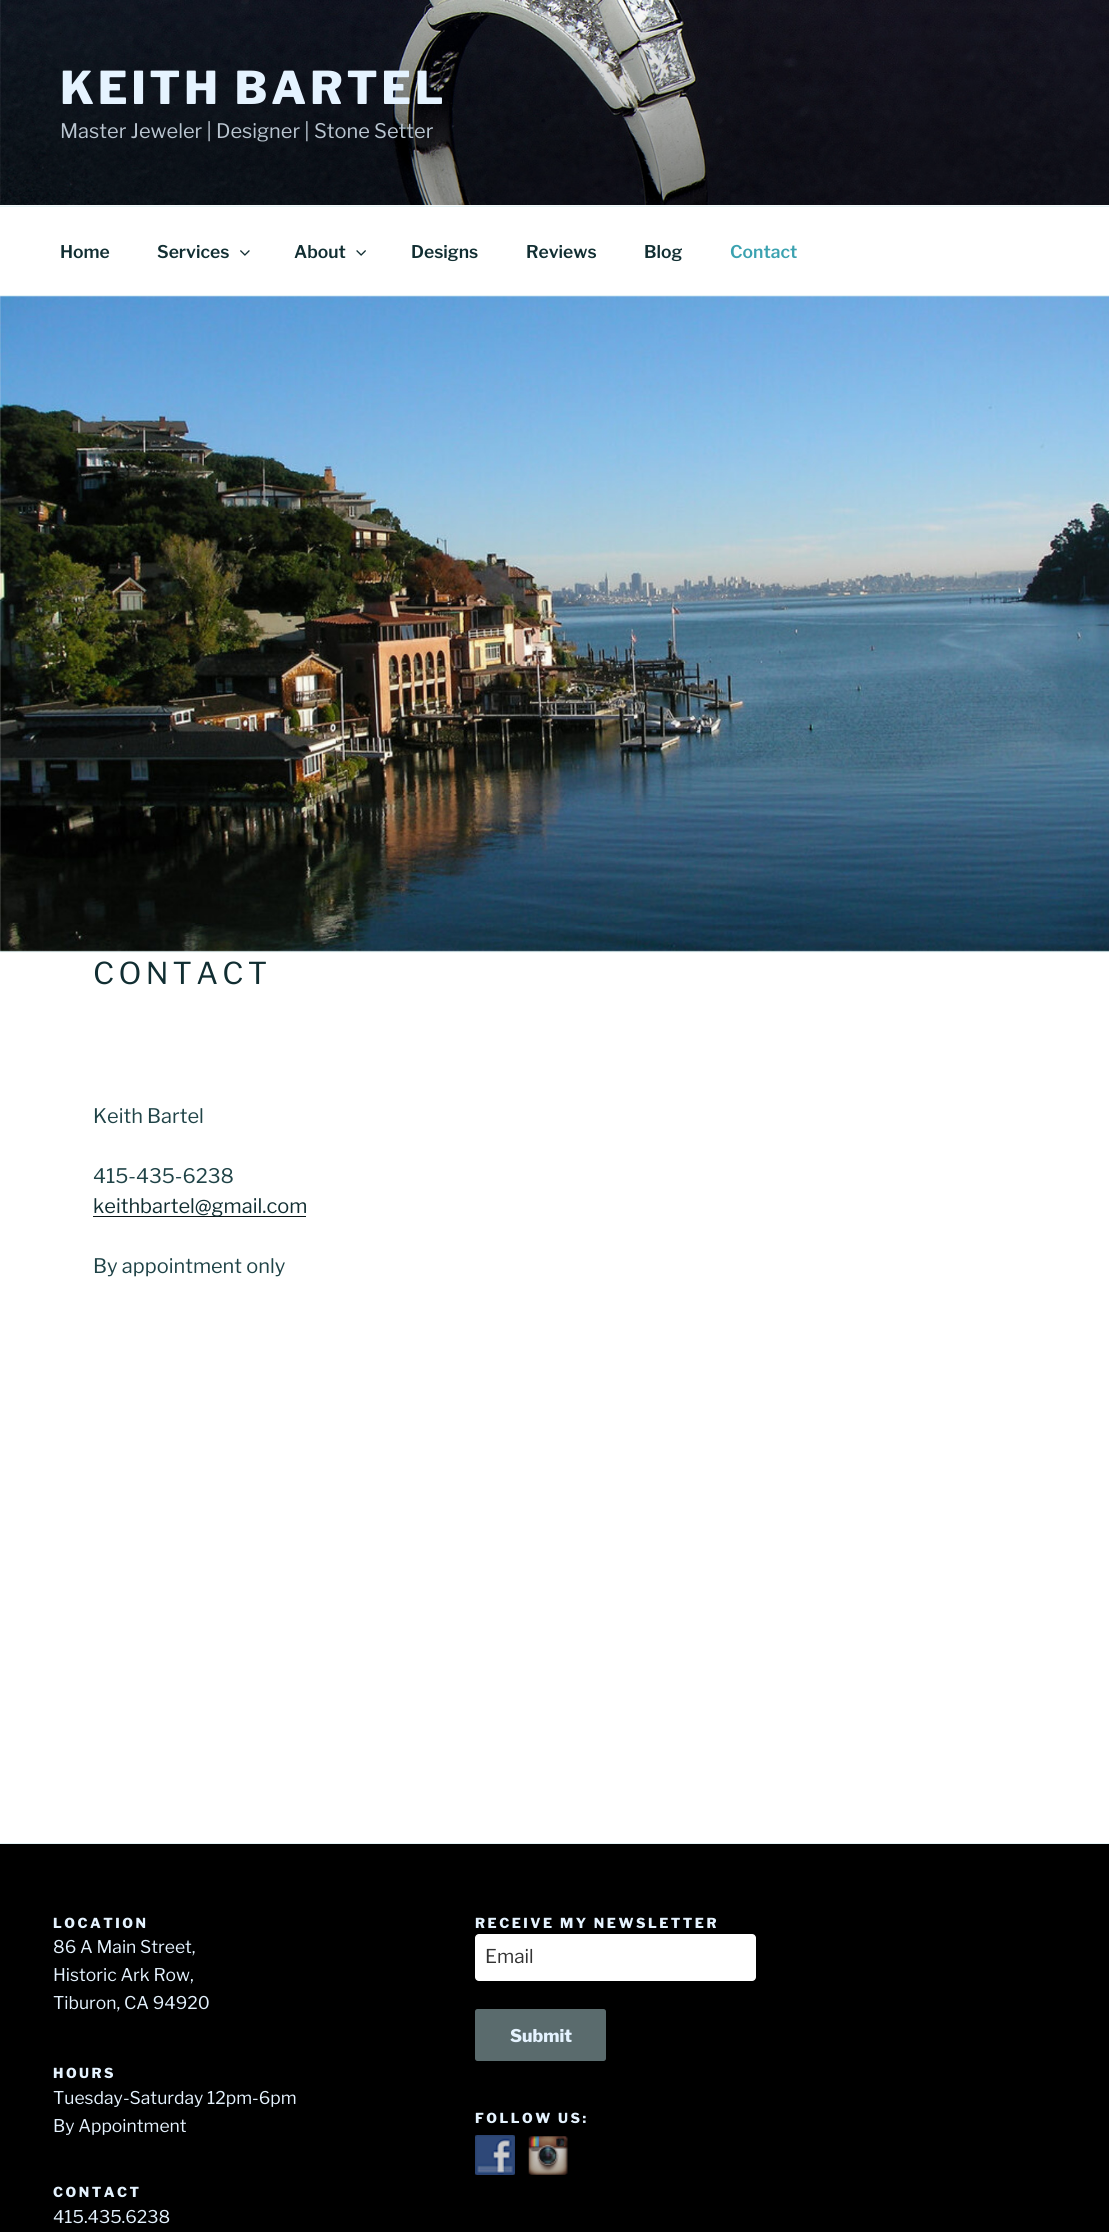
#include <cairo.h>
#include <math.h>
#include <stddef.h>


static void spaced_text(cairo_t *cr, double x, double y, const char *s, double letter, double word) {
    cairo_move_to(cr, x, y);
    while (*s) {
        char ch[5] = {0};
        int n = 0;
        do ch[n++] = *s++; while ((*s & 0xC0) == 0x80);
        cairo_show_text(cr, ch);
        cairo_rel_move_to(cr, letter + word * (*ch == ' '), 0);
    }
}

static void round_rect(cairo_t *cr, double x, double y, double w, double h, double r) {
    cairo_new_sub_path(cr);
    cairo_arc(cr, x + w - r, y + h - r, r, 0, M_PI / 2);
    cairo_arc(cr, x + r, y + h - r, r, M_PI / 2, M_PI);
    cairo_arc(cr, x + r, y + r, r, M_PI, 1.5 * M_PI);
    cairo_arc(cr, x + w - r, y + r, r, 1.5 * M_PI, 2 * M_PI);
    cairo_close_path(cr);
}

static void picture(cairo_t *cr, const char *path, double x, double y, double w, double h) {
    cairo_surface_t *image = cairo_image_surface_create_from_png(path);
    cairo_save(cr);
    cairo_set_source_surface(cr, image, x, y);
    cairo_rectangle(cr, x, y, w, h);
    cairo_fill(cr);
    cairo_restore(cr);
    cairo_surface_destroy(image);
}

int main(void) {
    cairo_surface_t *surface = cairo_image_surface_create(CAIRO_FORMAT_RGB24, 1109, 2232);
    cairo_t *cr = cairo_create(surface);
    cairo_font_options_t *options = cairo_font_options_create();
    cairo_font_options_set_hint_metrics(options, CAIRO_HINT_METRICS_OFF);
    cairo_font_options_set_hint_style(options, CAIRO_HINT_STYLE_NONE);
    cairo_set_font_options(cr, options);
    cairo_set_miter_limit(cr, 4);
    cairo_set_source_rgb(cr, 1, 1, 1);
    cairo_paint(cr);
    cairo_set_source_rgb(cr, 0.969, 0.988, 0.988);
    cairo_rectangle(cr, 0, 205, 1109, 1);
    cairo_fill(cr);
    picture(cr, "img1.png", 0, 0, 1109, 205);
    cairo_select_font_face(cr, "Libre Franklin Thin", CAIRO_FONT_SLANT_NORMAL, CAIRO_FONT_WEIGHT_NORMAL);
    cairo_set_font_size(cr, 45);
    cairo_set_source_rgb(cr, 0.898, 0.953, 1);
    spaced_text(cr, 60, 104, "KEITH BARTEL", 3.6, 0);
    cairo_select_font_face(cr, "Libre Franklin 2 Thin", CAIRO_FONT_SLANT_NORMAL, CAIRO_FONT_WEIGHT_NORMAL);
    cairo_set_font_size(cr, 20);
    cairo_set_source_rgb(cr, 0.729, 0.776, 0.82);
    cairo_move_to(cr, 60, 138);
    cairo_show_text(cr, "Master Jeweler | Designer |");
    cairo_move_to(cr, 314, 138);
    cairo_show_text(cr, "Stone Setter");
    cairo_set_source_rgb(cr, 0.894, 0.957, 0.965);
    cairo_rectangle(cr, 0, 206, 1109, 1);
    cairo_fill(cr);
    cairo_rectangle(cr, 0, 295, 1109, 1);
    cairo_fill(cr);
    cairo_select_font_face(cr, "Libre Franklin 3 Thin", CAIRO_FONT_SLANT_NORMAL, CAIRO_FONT_WEIGHT_NORMAL);
    cairo_set_font_size(cr, 17.5);
    cairo_set_source_rgb(cr, 0.067, 0.18, 0.196);
    cairo_move_to(cr, 60, 258);
    cairo_show_text(cr, "Home");
    cairo_move_to(cr, 157, 258);
    cairo_show_text(cr, "Services");
    picture(cr, "img2.png", 240, 250, 10, 6);
    cairo_move_to(cr, 294, 258);
    cairo_show_text(cr, "About");
    picture(cr, "img3.png", 356, 250, 10, 6);
    cairo_move_to(cr, 411, 258);
    cairo_show_text(cr, "Designs");
    cairo_move_to(cr, 526, 258);
    cairo_show_text(cr, "Reviews");
    cairo_move_to(cr, 644, 258);
    cairo_show_text(cr, "Blog");
    cairo_set_source_rgb(cr, 0.231, 0.635, 0.69);
    cairo_move_to(cr, 730, 258);
    cairo_show_text(cr, "Contact");
    cairo_set_source_rgb(cr, 0.969, 0.988, 0.988);
    cairo_rectangle(cr, 0, 296, 1109, 657);
    cairo_fill(cr);
    cairo_set_source_rgb(cr, 0.894, 0.957, 0.965);
    cairo_rectangle(cr, 0, 951, 1109, 1);
    cairo_fill(cr);
    picture(cr, "img4.png", 0, 296, 1109, 656);
    cairo_select_font_face(cr, "Libre Franklin 2 Thin", CAIRO_FONT_SLANT_NORMAL, CAIRO_FONT_WEIGHT_NORMAL);
    cairo_set_font_size(cr, 30);
    cairo_set_source_rgb(cr, 0.067, 0.18, 0.196);
    spaced_text(cr, 93, 984, "CONTACT", 4.25, 0);
    cairo_set_font_size(cr, 20);
    cairo_set_source_rgb(cr, 0.122, 0.263, 0.278);
    cairo_move_to(cr, 93, 1123);
    cairo_show_text(cr, "Keith Bartel");
    cairo_move_to(cr, 93, 1183);
    cairo_show_text(cr, "415-435-6238");
    cairo_set_source_rgb(cr, 0.031, 0.082, 0.09);
    cairo_rectangle(cr, 93, 1216, 213, 1);
    cairo_fill(cr);
    cairo_set_source_rgb(cr, 0.067, 0.18, 0.196);
    cairo_move_to(cr, 93, 1213);
    cairo_show_text(cr, "keithbartel@gmail.com");
    cairo_set_source_rgb(cr, 0.122, 0.263, 0.278);
    cairo_move_to(cr, 93, 1273);
    cairo_show_text(cr, "By appointment only");
    cairo_set_source_rgb(cr, 0, 0, 0);
    cairo_rectangle(cr, 0, 1844, 1109, 388);
    cairo_fill(cr);
    cairo_set_source_rgb(cr, 0.894, 0.957, 0.965);
    cairo_rectangle(cr, 0, 1843, 1109, 1);
    cairo_fill(cr);
    cairo_select_font_face(cr, "Libre Franklin Thin", CAIRO_FONT_SLANT_NORMAL, CAIRO_FONT_WEIGHT_NORMAL);
    cairo_set_font_size(cr, 13.75);
    cairo_set_source_rgb(cr, 0.898, 0.953, 1);
    spaced_text(cr, 53, 1928, "LOCATION", 2.5, 0);
    cairo_select_font_face(cr, "Libre Franklin 2 Thin", CAIRO_FONT_SLANT_NORMAL, CAIRO_FONT_WEIGHT_NORMAL);
    cairo_set_font_size(cr, 17.5);
    cairo_move_to(cr, 53, 1953);
    cairo_show_text(cr, "86 A Main Street,");
    cairo_move_to(cr, 53, 1981);
    cairo_show_text(cr, "Historic Ark Row,");
    cairo_move_to(cr, 53, 2009);
    cairo_show_text(cr, "Tiburon, CA 94920");
    cairo_select_font_face(cr, "Libre Franklin Thin", CAIRO_FONT_SLANT_NORMAL, CAIRO_FONT_WEIGHT_NORMAL);
    cairo_set_font_size(cr, 13.75);
    spaced_text(cr, 53, 2078, "HOURS", 2.5, 0);
    cairo_select_font_face(cr, "Libre Franklin 2 Thin", CAIRO_FONT_SLANT_NORMAL, CAIRO_FONT_WEIGHT_NORMAL);
    cairo_set_font_size(cr, 17.5);
    cairo_move_to(cr, 53, 2104);
    cairo_show_text(cr, "Tuesday-Saturday 12pm-6pm");
    cairo_move_to(cr, 53, 2132);
    cairo_show_text(cr, "By Appointment");
    cairo_select_font_face(cr, "Libre Franklin Thin", CAIRO_FONT_SLANT_NORMAL, CAIRO_FONT_WEIGHT_NORMAL);
    cairo_set_font_size(cr, 13.75);
    spaced_text(cr, 53, 2197, "CONTACT", 2.5, 0);
    cairo_select_font_face(cr, "Libre Franklin 2 Thin", CAIRO_FONT_SLANT_NORMAL, CAIRO_FONT_WEIGHT_NORMAL);
    cairo_set_font_size(cr, 17.5);
    cairo_move_to(cr, 53, 2223);
    cairo_show_text(cr, "415.435.6238");
    cairo_select_font_face(cr, "Libre Franklin Thin", CAIRO_FONT_SLANT_NORMAL, CAIRO_FONT_WEIGHT_NORMAL);
    cairo_set_font_size(cr, 13.75);
    spaced_text(cr, 475, 1928, "RECEIVE MY NEWSLETTER", 2.5, 0);
    cairo_set_source_rgb(cr, 1, 1, 1);
    round_rect(cr, 475, 1934, 281, 47, 4);
    cairo_fill(cr);
    cairo_select_font_face(cr, "Libre Franklin 2 Thin", CAIRO_FONT_SLANT_NORMAL, CAIRO_FONT_WEIGHT_NORMAL);
    cairo_set_font_size(cr, 19);
    cairo_set_source_rgb(cr, 0.2, 0.2, 0.2);
    cairo_move_to(cr, 485, 1963);
    cairo_show_text(cr, "Email");
    cairo_set_source_rgb(cr, 0.353, 0.42, 0.427);
    round_rect(cr, 475, 2009, 131, 52, 2.5);
    cairo_fill(cr);
    cairo_select_font_face(cr, "Libre Franklin Thin", CAIRO_FONT_SLANT_NORMAL, CAIRO_FONT_WEIGHT_NORMAL);
    cairo_set_font_size(cr, 17.5);
    cairo_set_source_rgb(cr, 0.898, 0.953, 1);
    cairo_move_to(cr, 510, 2042);
    cairo_show_text(cr, "Submit");
    cairo_set_font_size(cr, 13.75);
    spaced_text(cr, 475, 2123, "FOLLOW US:", 2.5, 0);
    picture(cr, "img5.png", 475, 2135, 40, 40);
    picture(cr, "img6.png", 528, 2136, 40, 39);
    cairo_surface_write_to_png(surface, "page.png");
    cairo_font_options_destroy(options);
    cairo_destroy(cr);
    cairo_surface_destroy(surface);
    return 0;
}
